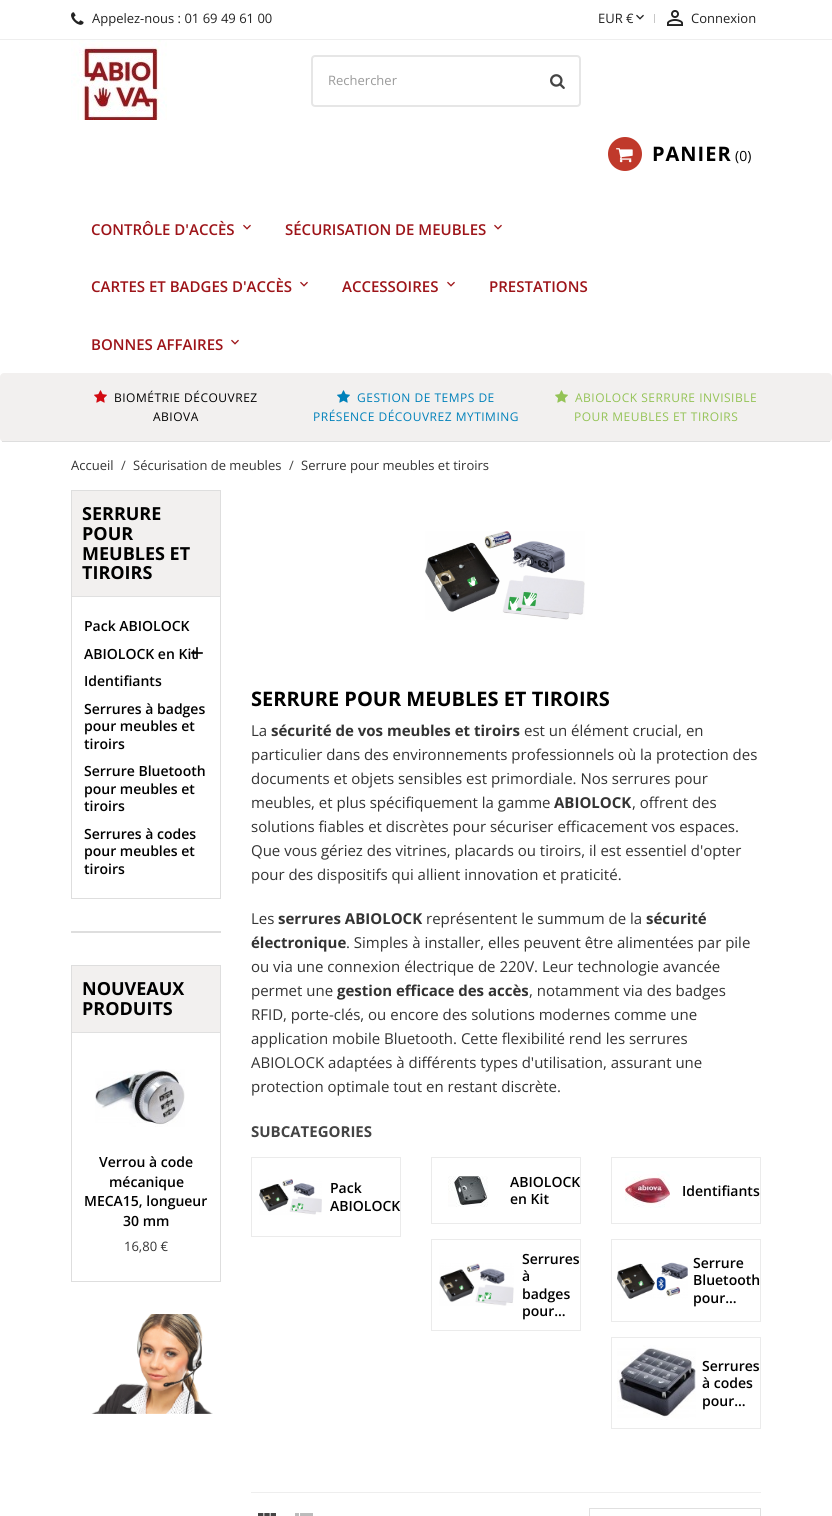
#include <cairo.h>
#include <math.h>
#include <stddef.h>


static void spaced_text(cairo_t *cr, double x, double y, const char *s, double letter, double word) {
    cairo_move_to(cr, x, y);
    while (*s) {
        char ch[5] = {0};
        int n = 0;
        do ch[n++] = *s++; while ((*s & 0xC0) == 0x80);
        cairo_show_text(cr, ch);
        cairo_rel_move_to(cr, letter + word * (*ch == ' '), 0);
    }
}

static void round_rect(cairo_t *cr, double x, double y, double w, double h, double r) {
    cairo_new_sub_path(cr);
    cairo_arc(cr, x + w - r, y + h - r, r, 0, M_PI / 2);
    cairo_arc(cr, x + r, y + h - r, r, M_PI / 2, M_PI);
    cairo_arc(cr, x + r, y + r, r, M_PI, 1.5 * M_PI);
    cairo_arc(cr, x + w - r, y + r, r, 1.5 * M_PI, 2 * M_PI);
    cairo_close_path(cr);
}

static void picture(cairo_t *cr, const char *path, double x, double y, double w, double h) {
    cairo_surface_t *image = cairo_image_surface_create_from_png(path);
    cairo_save(cr);
    cairo_set_source_surface(cr, image, x, y);
    cairo_rectangle(cr, x, y, w, h);
    cairo_fill(cr);
    cairo_restore(cr);
    cairo_surface_destroy(image);
}

int main(void) {
    cairo_surface_t *surface = cairo_image_surface_create(CAIRO_FORMAT_RGB24, 832, 1516);
    cairo_t *cr = cairo_create(surface);
    cairo_font_options_t *options = cairo_font_options_create();
    cairo_font_options_set_hint_metrics(options, CAIRO_HINT_METRICS_OFF);
    cairo_font_options_set_hint_style(options, CAIRO_HINT_STYLE_NONE);
    cairo_set_font_options(cr, options);
    cairo_set_miter_limit(cr, 4);
    cairo_set_source_rgb(cr, 1, 1, 1);
    cairo_paint(cr);
    cairo_set_source_rgb(cr, 0.933, 0.933, 0.933);
    cairo_rectangle(cr, 0, 39, 832, 1);
    cairo_fill(cr);
    picture(cr, "img1.png", 71, 12, 13, 13);
    cairo_select_font_face(cr, "Open Sans", CAIRO_FONT_SLANT_NORMAL, CAIRO_FONT_WEIGHT_NORMAL);
    cairo_set_font_size(cr, 13);
    cairo_set_source_rgb(cr, 0.133, 0.133, 0.133);
    cairo_move_to(cr, 92, 23);
    cairo_show_text(cr, "Appelez-nous : 01 69 49 61 00");
    cairo_move_to(cr, 598, 23);
    cairo_show_text(cr, "EUR €");
    picture(cr, "img2.png", 636, 14, 8, 6);
    cairo_set_source_rgb(cr, 0.78, 0.78, 0.78);
    cairo_rectangle(cr, 654, 14, 1, 9);
    cairo_fill(cr);
    picture(cr, "img3.png", 667, 10, 16, 16);
    cairo_set_source_rgb(cr, 0.133, 0.133, 0.133);
    cairo_move_to(cr, 691, 23);
    cairo_show_text(cr, "Connexion");
    picture(cr, "img4.png", 71, 40, 96, 80);
    round_rect(cr, 312, 56, 268, 50, 3);
    cairo_set_source_rgb(cr, 0.902, 0.902, 0.902);
    cairo_stroke(cr);
    cairo_set_source_rgb(cr, 0.604, 0.604, 0.604);
    cairo_move_to(cr, 328, 85);
    cairo_show_text(cr, "Rechercher");
    picture(cr, "img5.png", 550, 74, 15, 15);
    cairo_set_source_rgb(cr, 0.753, 0.224, 0.169);
    cairo_arc(cr, 625, 154, 17, 0, 2 * M_PI);
    cairo_fill(cr);
    picture(cr, "img6.png", 616, 148, 17, 15);
    cairo_select_font_face(cr, "Open Sans", CAIRO_FONT_SLANT_NORMAL, CAIRO_FONT_WEIGHT_BOLD);
    cairo_set_font_size(cr, 20);
    cairo_set_source_rgb(cr, 0, 0, 0);
    spaced_text(cr, 652, 161, "PANIER", 1, 0);
    cairo_select_font_face(cr, "Open Sans", CAIRO_FONT_SLANT_NORMAL, CAIRO_FONT_WEIGHT_NORMAL);
    cairo_set_font_size(cr, 14);
    cairo_move_to(cr, 735, 161);
    cairo_show_text(cr, "(0)");
    cairo_select_font_face(cr, "Open Sans SemiBold", CAIRO_FONT_SLANT_NORMAL, CAIRO_FONT_WEIGHT_NORMAL);
    cairo_set_font_size(cr, 15);
    cairo_set_source_rgb(cr, 0.616, 0.082, 0.098);
    cairo_move_to(cr, 91, 235);
    cairo_show_text(cr, "CONTRÔLE D'ACCÈS");
    picture(cr, "img7.png", 243, 224, 8, 6);
    cairo_move_to(cr, 285, 235);
    cairo_show_text(cr, "SÉCURISATION DE MEUBLES");
    picture(cr, "img7.png", 494, 224, 8, 6);
    cairo_move_to(cr, 91, 292);
    cairo_show_text(cr, "CARTES ET BADGES D'ACCÈS");
    picture(cr, "img7.png", 300, 281, 8, 6);
    cairo_move_to(cr, 342, 292);
    cairo_show_text(cr, "ACCESSOIRES");
    picture(cr, "img7.png", 447, 281, 8, 6);
    cairo_move_to(cr, 489, 292);
    cairo_show_text(cr, "PRESTATIONS");
    cairo_move_to(cr, 91, 350);
    cairo_show_text(cr, "BONNES AFFAIRES");
    picture(cr, "img7.png", 231, 339, 8, 6);
    cairo_set_source_rgb(cr, 0.949, 0.941, 0.937);
    round_rect(cr, 0, 373, 832, 69, 4);
    cairo_fill(cr);
    cairo_set_source_rgb(cr, 0.871, 0.871, 0.871);
    cairo_rectangle(cr, 2, 441, 828, 1);
    cairo_fill(cr);
    picture(cr, "img8.png", 94, 390, 13, 13);
    cairo_select_font_face(cr, "Open Sans", CAIRO_FONT_SLANT_NORMAL, CAIRO_FONT_WEIGHT_NORMAL);
    cairo_set_font_size(cr, 12);
    cairo_set_source_rgb(cr, 0, 0, 0);
    spaced_text(cr, 114, 402, "BIOMÉTRIE DÉCOUVREZ", 0.5, 0);
    spaced_text(cr, 153, 421, "ABIOVA", 0.5, 0);
    picture(cr, "img9.png", 337, 390, 13, 13);
    cairo_set_source_rgb(cr, 0, 0.506, 0.729);
    spaced_text(cr, 357, 402, "GESTION DE TEMPS DE", 0.5, 0);
    spaced_text(cr, 313, 421, "PRÉSENCE DÉCOUVREZ MYTIMING", 0.5, 0);
    picture(cr, "img10.png", 555, 390, 13, 13);
    cairo_set_source_rgb(cr, 0.58, 0.765, 0.337);
    spaced_text(cr, 575, 402, "ABIOLOCK SERRURE INVISIBLE", 0.5, 0);
    spaced_text(cr, 574, 421, "POUR MEUBLES ET TIROIRS", 0.5, 0);
    cairo_set_font_size(cr, 13);
    cairo_set_source_rgb(cr, 0.2, 0.2, 0.2);
    cairo_move_to(cr, 71, 470);
    cairo_show_text(cr, "Accueil");
    cairo_set_source_rgb(cr, 0.267, 0.267, 0.267);
    cairo_move_to(cr, 121, 470);
    cairo_show_text(cr, "/");
    cairo_set_source_rgb(cr, 0.2, 0.2, 0.2);
    cairo_move_to(cr, 133, 470);
    cairo_show_text(cr, "Sécurisation de meubles");
    cairo_set_source_rgb(cr, 0.267, 0.267, 0.267);
    cairo_move_to(cr, 289, 470);
    cairo_show_text(cr, "/");
    cairo_set_source_rgb(cr, 0.2, 0.2, 0.2);
    cairo_move_to(cr, 301, 470);
    cairo_show_text(cr, "Serrure pour meubles et tiroirs");
    cairo_rectangle(cr, 71.5, 490.5, 149, 408);
    cairo_set_source_rgb(cr, 0.871, 0.871, 0.871);
    cairo_set_line_width(cr, 1);
    cairo_stroke(cr);
    cairo_set_source_rgb(cr, 0.949, 0.941, 0.937);
    cairo_rectangle(cr, 72, 491, 148, 105);
    cairo_fill(cr);
    cairo_set_source_rgb(cr, 0.878, 0.878, 0.878);
    cairo_rectangle(cr, 72, 596, 148, 1);
    cairo_fill(cr);
    cairo_select_font_face(cr, "Open Sans", CAIRO_FONT_SLANT_NORMAL, CAIRO_FONT_WEIGHT_BOLD);
    cairo_set_font_size(cr, 18);
    cairo_set_source_rgb(cr, 0, 0, 0);
    cairo_move_to(cr, 82, 520);
    cairo_show_text(cr, "SERRURE");
    cairo_move_to(cr, 82, 540);
    cairo_show_text(cr, "POUR");
    cairo_move_to(cr, 82, 560);
    cairo_show_text(cr, "MEUBLES ET");
    cairo_move_to(cr, 82, 579);
    cairo_show_text(cr, "TIROIRS");
    cairo_select_font_face(cr, "Open Sans SemiBold", CAIRO_FONT_SLANT_NORMAL, CAIRO_FONT_WEIGHT_NORMAL);
    cairo_set_font_size(cr, 14);
    cairo_move_to(cr, 84, 631);
    cairo_show_text(cr, "Pack ABIOLOCK");
    cairo_move_to(cr, 84, 659);
    cairo_show_text(cr, "ABIOLOCK en Kit");
    picture(cr, "img11.png", 191, 647, 12, 12);
    cairo_move_to(cr, 84, 686);
    cairo_show_text(cr, "Identifiants");
    cairo_move_to(cr, 84, 714);
    cairo_show_text(cr, "Serrures à badges");
    cairo_move_to(cr, 84, 731);
    cairo_show_text(cr, "pour meubles et");
    cairo_move_to(cr, 84, 749);
    cairo_show_text(cr, "tiroirs");
    cairo_move_to(cr, 84, 776);
    cairo_show_text(cr, "Serrure Bluetooth");
    cairo_move_to(cr, 84, 794);
    cairo_show_text(cr, "pour meubles et");
    cairo_move_to(cr, 84, 811);
    cairo_show_text(cr, "tiroirs");
    cairo_move_to(cr, 84, 839);
    cairo_show_text(cr, "Serrures à codes");
    cairo_move_to(cr, 84, 856);
    cairo_show_text(cr, "pour meubles et");
    cairo_move_to(cr, 84, 874);
    cairo_show_text(cr, "tiroirs");
    cairo_set_source_rgb(cr, 0.871, 0.871, 0.871);
    cairo_rectangle(cr, 71, 931, 150, 2);
    cairo_fill(cr);
    cairo_rectangle(cr, 71.5, 965.5, 149, 316);
    cairo_stroke(cr);
    cairo_set_source_rgb(cr, 0.949, 0.941, 0.937);
    cairo_rectangle(cr, 72, 966, 148, 66);
    cairo_fill(cr);
    cairo_set_source_rgb(cr, 0.878, 0.878, 0.878);
    cairo_rectangle(cr, 72, 1032, 148, 1);
    cairo_fill(cr);
    cairo_select_font_face(cr, "Open Sans", CAIRO_FONT_SLANT_NORMAL, CAIRO_FONT_WEIGHT_BOLD);
    cairo_set_font_size(cr, 18);
    cairo_set_source_rgb(cr, 0, 0, 0);
    cairo_move_to(cr, 82, 995);
    cairo_show_text(cr, "NOUVEAUX");
    cairo_move_to(cr, 82, 1015);
    cairo_show_text(cr, "PRODUITS");
    picture(cr, "img12.png", 95, 1069, 90, 58);
    cairo_select_font_face(cr, "Open Sans SemiBold", CAIRO_FONT_SLANT_NORMAL, CAIRO_FONT_WEIGHT_NORMAL);
    cairo_set_font_size(cr, 14);
    cairo_move_to(cr, 99, 1167);
    cairo_show_text(cr, "Verrou à code");
    cairo_move_to(cr, 109, 1187);
    cairo_show_text(cr, "mécanique");
    cairo_move_to(cr, 84, 1206);
    cairo_show_text(cr, "MECA15, longueur");
    cairo_move_to(cr, 123, 1226);
    cairo_show_text(cr, "30 mm");
    cairo_select_font_face(cr, "Open Sans", CAIRO_FONT_SLANT_NORMAL, CAIRO_FONT_WEIGHT_NORMAL);
    cairo_set_font_size(cr, 13);
    cairo_set_source_rgb(cr, 0.2, 0.2, 0.2);
    cairo_move_to(cr, 124, 1251);
    cairo_show_text(cr, "16,80 €");
    picture(cr, "img13.png", 91, 1314, 122, 100);
    picture(cr, "img14.png", 425, 531, 160, 89);
    cairo_select_font_face(cr, "Open Sans", CAIRO_FONT_SLANT_NORMAL, CAIRO_FONT_WEIGHT_BOLD);
    cairo_set_font_size(cr, 20);
    cairo_set_source_rgb(cr, 0, 0, 0);
    cairo_move_to(cr, 251, 706);
    cairo_show_text(cr, "SERRURE POUR MEUBLES ET TIROIRS");
    cairo_select_font_face(cr, "Open Sans", CAIRO_FONT_SLANT_NORMAL, CAIRO_FONT_WEIGHT_NORMAL);
    cairo_set_font_size(cr, 15);
    cairo_set_source_rgb(cr, 0.2, 0.2, 0.2);
    cairo_move_to(cr, 251, 736);
    cairo_show_text(cr, "La");
    cairo_select_font_face(cr, "Open Sans", CAIRO_FONT_SLANT_NORMAL, CAIRO_FONT_WEIGHT_BOLD);
    cairo_move_to(cr, 271, 736);
    cairo_show_text(cr, "sécurité de vos meubles et tiroirs");
    cairo_select_font_face(cr, "Open Sans", CAIRO_FONT_SLANT_NORMAL, CAIRO_FONT_WEIGHT_NORMAL);
    cairo_move_to(cr, 524, 736);
    cairo_show_text(cr, "est un élément crucial, en");
    cairo_move_to(cr, 251, 760);
    cairo_show_text(cr, "particulier dans des environnements professionnels où la protection des");
    cairo_move_to(cr, 251, 784);
    cairo_show_text(cr, "documents et objets sensibles est primordiale. Nos serrures pour");
    cairo_move_to(cr, 251, 808);
    cairo_show_text(cr, "meubles, et plus spécifiquement la gamme");
    cairo_select_font_face(cr, "Open Sans", CAIRO_FONT_SLANT_NORMAL, CAIRO_FONT_WEIGHT_BOLD);
    cairo_move_to(cr, 554, 808);
    cairo_show_text(cr, "ABIOLOCK");
    cairo_select_font_face(cr, "Open Sans", CAIRO_FONT_SLANT_NORMAL, CAIRO_FONT_WEIGHT_NORMAL);
    cairo_move_to(cr, 632, 808);
    cairo_show_text(cr, ", offrent des");
    cairo_move_to(cr, 251, 832);
    cairo_show_text(cr, "solutions fiables et discrètes pour sécuriser efficacement vos espaces.");
    cairo_move_to(cr, 251, 856);
    cairo_show_text(cr, "Que vous gériez des vitrines, placards ou tiroirs, il est essentiel d'opter");
    cairo_move_to(cr, 251, 880);
    cairo_show_text(cr, "pour des dispositifs qui allient innovation et praticité.");
    cairo_move_to(cr, 251, 924);
    cairo_show_text(cr, "Les");
    cairo_select_font_face(cr, "Open Sans", CAIRO_FONT_SLANT_NORMAL, CAIRO_FONT_WEIGHT_BOLD);
    cairo_move_to(cr, 278, 924);
    cairo_show_text(cr, "serrures ABIOLOCK");
    cairo_select_font_face(cr, "Open Sans", CAIRO_FONT_SLANT_NORMAL, CAIRO_FONT_WEIGHT_NORMAL);
    cairo_move_to(cr, 426, 924);
    cairo_show_text(cr, "représentent le summum de la");
    cairo_select_font_face(cr, "Open Sans", CAIRO_FONT_SLANT_NORMAL, CAIRO_FONT_WEIGHT_BOLD);
    cairo_move_to(cr, 646, 924);
    cairo_show_text(cr, "sécurité");
    cairo_move_to(cr, 251, 948);
    cairo_show_text(cr, "électronique");
    cairo_select_font_face(cr, "Open Sans", CAIRO_FONT_SLANT_NORMAL, CAIRO_FONT_WEIGHT_NORMAL);
    cairo_move_to(cr, 346, 948);
    cairo_show_text(cr, ". Simples à installer, elles peuvent être alimentées par pile");
    cairo_move_to(cr, 251, 972);
    cairo_show_text(cr, "ou via une connexion électrique de 220V. Leur technologie avancée");
    cairo_move_to(cr, 251, 996);
    cairo_show_text(cr, "permet une");
    cairo_select_font_face(cr, "Open Sans", CAIRO_FONT_SLANT_NORMAL, CAIRO_FONT_WEIGHT_BOLD);
    cairo_move_to(cr, 337, 996);
    cairo_show_text(cr, "gestion efficace des accès");
    cairo_select_font_face(cr, "Open Sans", CAIRO_FONT_SLANT_NORMAL, CAIRO_FONT_WEIGHT_NORMAL);
    cairo_move_to(cr, 529, 996);
    cairo_show_text(cr, ", notamment via des badges");
    cairo_move_to(cr, 251, 1020);
    cairo_show_text(cr, "RFID, porte-clés, ou encore des solutions modernes comme une");
    cairo_move_to(cr, 251, 1044);
    cairo_show_text(cr, "application mobile Bluetooth. Cette flexibilité rend les serrures");
    cairo_move_to(cr, 251, 1068);
    cairo_show_text(cr, "ABIOLOCK adaptées à différents types d'utilisation, assurant une");
    cairo_move_to(cr, 251, 1092);
    cairo_show_text(cr, "protection optimale tout en restant discrète.");
    cairo_select_font_face(cr, "Open Sans", CAIRO_FONT_SLANT_NORMAL, CAIRO_FONT_WEIGHT_BOLD);
    cairo_set_source_rgb(cr, 0.267, 0.267, 0.267);
    cairo_move_to(cr, 251, 1137);
    cairo_show_text(cr, "SUBCATEGORIES");
    cairo_rectangle(cr, 251.5, 1157.5, 149, 79);
    cairo_set_source_rgb(cr, 0.918, 0.918, 0.918);
    cairo_stroke(cr);
    picture(cr, "img15.png", 259, 1179, 63, 36);
    cairo_select_font_face(cr, "Open Sans SemiBold", CAIRO_FONT_SLANT_NORMAL, CAIRO_FONT_WEIGHT_NORMAL);
    cairo_set_font_size(cr, 14);
    cairo_set_source_rgb(cr, 0, 0, 0);
    cairo_move_to(cr, 330, 1193);
    cairo_show_text(cr, "Pack");
    cairo_move_to(cr, 330, 1211);
    cairo_show_text(cr, "ABIOLOCK");
    cairo_rectangle(cr, 431.5, 1157.5, 149, 66);
    cairo_set_source_rgb(cr, 0.918, 0.918, 0.918);
    cairo_stroke(cr);
    picture(cr, "img16.png", 448, 1176, 40, 31);
    cairo_set_source_rgb(cr, 0, 0, 0);
    cairo_move_to(cr, 510, 1187);
    cairo_show_text(cr, "ABIOLOCK");
    cairo_move_to(cr, 510, 1204);
    cairo_show_text(cr, "en Kit");
    cairo_rectangle(cr, 611.5, 1157.5, 149, 66);
    cairo_set_source_rgb(cr, 0.918, 0.918, 0.918);
    cairo_stroke(cr);
    picture(cr, "img17.png", 625, 1171, 45, 37);
    cairo_set_source_rgb(cr, 0, 0, 0);
    cairo_move_to(cr, 682, 1196);
    cairo_show_text(cr, "Identifiants");
    cairo_rectangle(cr, 431.5, 1239.5, 149, 91);
    cairo_set_source_rgb(cr, 0.918, 0.918, 0.918);
    cairo_stroke(cr);
    picture(cr, "img18.png", 439, 1263, 75, 43);
    cairo_set_source_rgb(cr, 0, 0, 0);
    cairo_move_to(cr, 522, 1264);
    cairo_show_text(cr, "Serrures");
    cairo_move_to(cr, 522, 1281);
    cairo_show_text(cr, "à");
    cairo_move_to(cr, 522, 1299);
    cairo_show_text(cr, "badges");
    cairo_move_to(cr, 522, 1316);
    cairo_show_text(cr, "pour...");
    cairo_rectangle(cr, 611.5, 1239.5, 149, 82);
    cairo_set_source_rgb(cr, 0.918, 0.918, 0.918);
    cairo_stroke(cr);
    picture(cr, "img19.png", 617, 1262, 71, 37);
    cairo_set_source_rgb(cr, 0, 0, 0);
    cairo_move_to(cr, 693, 1268);
    cairo_show_text(cr, "Serrure");
    cairo_move_to(cr, 693, 1285);
    cairo_show_text(cr, "Bluetooth");
    cairo_move_to(cr, 693, 1303);
    cairo_show_text(cr, "pour...");
    cairo_rectangle(cr, 611.5, 1337.5, 149, 91);
    cairo_set_source_rgb(cr, 0.918, 0.918, 0.918);
    cairo_stroke(cr);
    picture(cr, "img20.png", 617, 1345, 79, 75);
    cairo_set_source_rgb(cr, 0, 0, 0);
    cairo_move_to(cr, 702, 1371);
    cairo_show_text(cr, "Serrures");
    cairo_move_to(cr, 702, 1388);
    cairo_show_text(cr, "à codes");
    cairo_move_to(cr, 702, 1406);
    cairo_show_text(cr, "pour...");
    cairo_set_source_rgb(cr, 0.933, 0.933, 0.933);
    cairo_rectangle(cr, 251, 1492, 510, 1);
    cairo_fill(cr);
    picture(cr, "img21.png", 258, 1513, 18, 3);
    picture(cr, "img22.png", 295, 1513, 18, 3);
    cairo_rectangle(cr, 589.5, 1508.5, 171, 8);
    cairo_set_source_rgb(cr, 0.878, 0.878, 0.878);
    cairo_stroke(cr);
    cairo_surface_write_to_png(surface, "page.png");
    cairo_font_options_destroy(options);
    cairo_destroy(cr);
    cairo_surface_destroy(surface);
    return 0;
}
